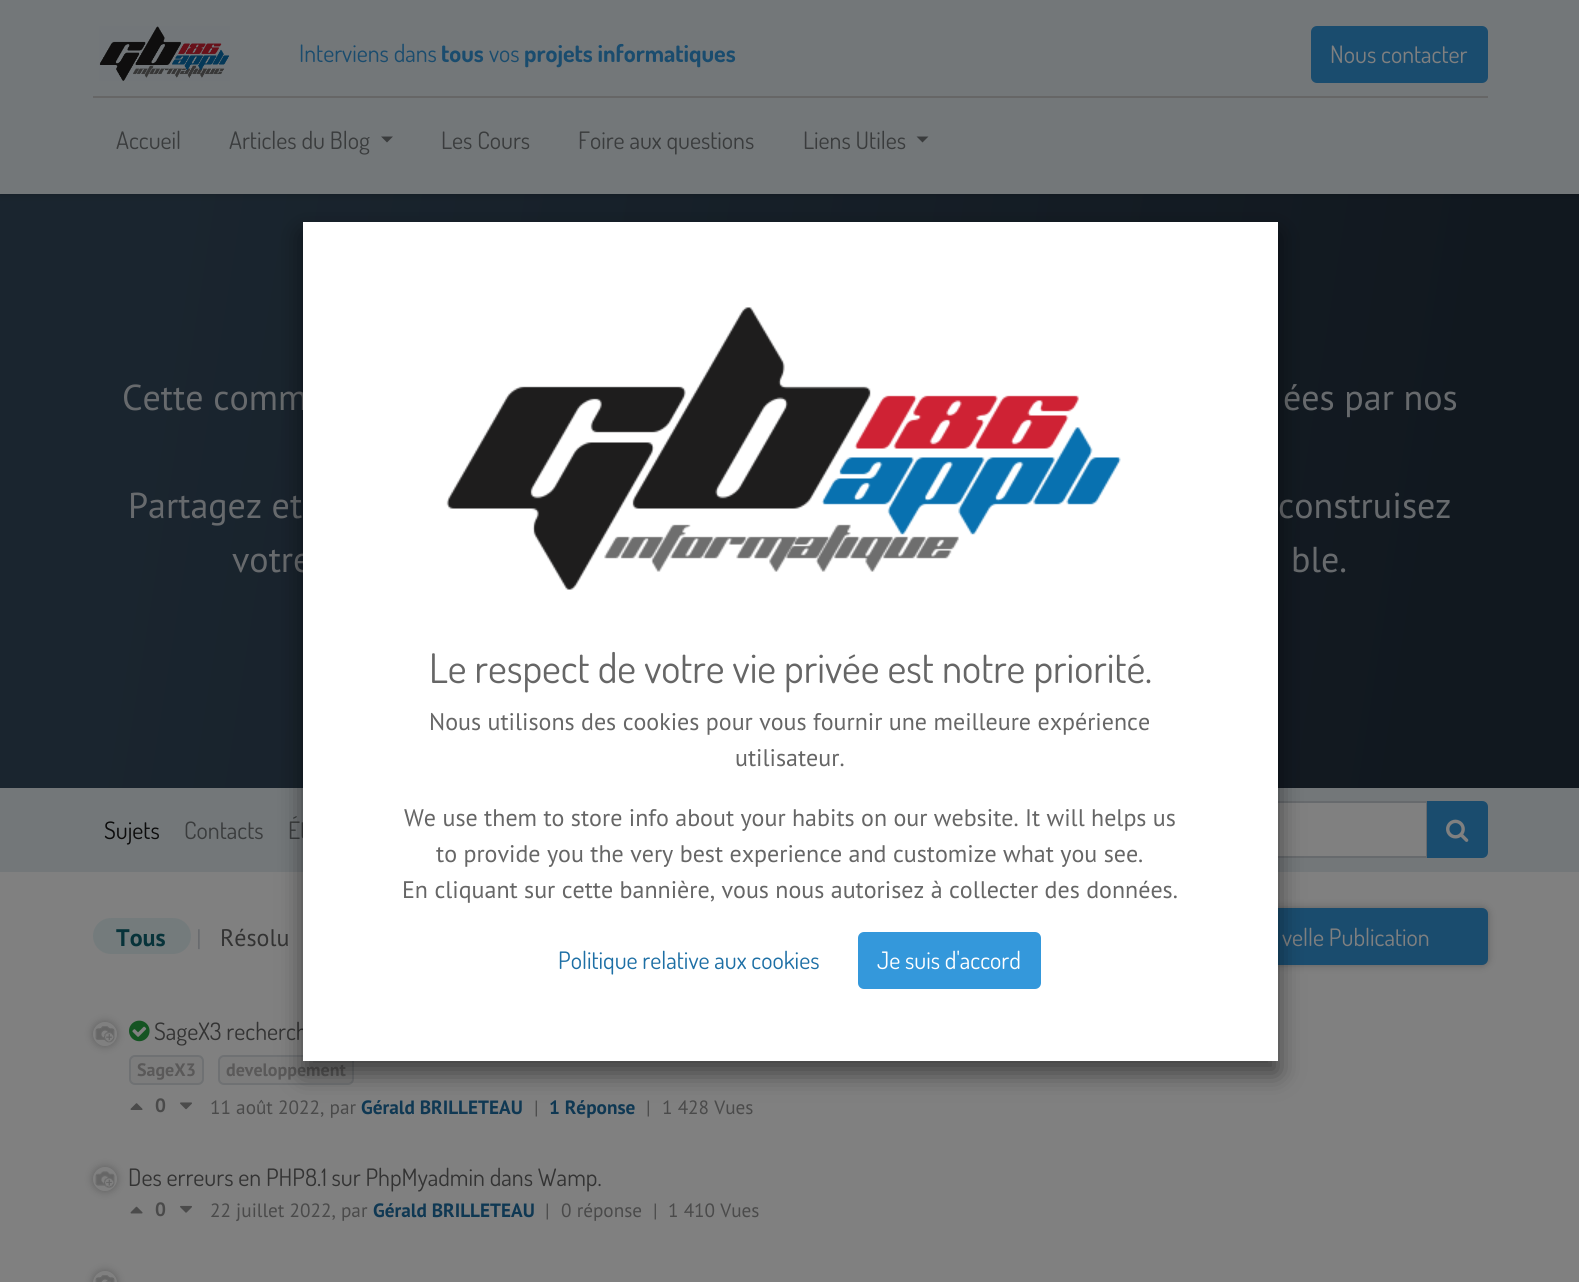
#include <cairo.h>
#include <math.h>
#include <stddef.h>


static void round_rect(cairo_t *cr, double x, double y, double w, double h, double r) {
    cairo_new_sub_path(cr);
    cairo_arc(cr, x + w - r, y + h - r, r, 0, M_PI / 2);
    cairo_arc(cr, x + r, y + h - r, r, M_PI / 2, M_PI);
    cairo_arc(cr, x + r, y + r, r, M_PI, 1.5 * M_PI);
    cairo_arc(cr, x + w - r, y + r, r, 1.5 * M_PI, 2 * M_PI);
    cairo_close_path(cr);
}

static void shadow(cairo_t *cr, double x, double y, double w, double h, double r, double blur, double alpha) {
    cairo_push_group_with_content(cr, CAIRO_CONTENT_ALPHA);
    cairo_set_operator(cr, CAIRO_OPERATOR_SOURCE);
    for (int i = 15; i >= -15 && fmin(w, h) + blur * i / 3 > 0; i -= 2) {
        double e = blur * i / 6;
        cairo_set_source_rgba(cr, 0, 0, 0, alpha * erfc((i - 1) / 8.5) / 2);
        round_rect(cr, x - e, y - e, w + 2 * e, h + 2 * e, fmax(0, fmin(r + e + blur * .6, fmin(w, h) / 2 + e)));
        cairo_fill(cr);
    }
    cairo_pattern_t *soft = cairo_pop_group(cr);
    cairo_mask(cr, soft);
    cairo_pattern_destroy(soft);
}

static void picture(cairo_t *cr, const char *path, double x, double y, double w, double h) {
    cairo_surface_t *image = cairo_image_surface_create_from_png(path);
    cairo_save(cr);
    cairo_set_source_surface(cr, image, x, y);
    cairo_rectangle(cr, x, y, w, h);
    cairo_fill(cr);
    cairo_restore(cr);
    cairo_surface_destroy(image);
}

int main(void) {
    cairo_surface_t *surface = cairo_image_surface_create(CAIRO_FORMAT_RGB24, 1579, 1282);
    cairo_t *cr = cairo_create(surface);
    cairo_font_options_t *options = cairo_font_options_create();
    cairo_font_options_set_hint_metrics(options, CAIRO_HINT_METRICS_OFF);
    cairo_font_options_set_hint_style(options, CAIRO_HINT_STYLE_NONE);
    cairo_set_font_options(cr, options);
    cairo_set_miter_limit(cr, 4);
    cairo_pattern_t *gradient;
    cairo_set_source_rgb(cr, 0.502, 0.502, 0.502);
    cairo_paint(cr);
    gradient = cairo_pattern_create_linear(-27, 361, 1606, 620);
    cairo_pattern_add_color_stop_rgba(gradient, 0.1, 0.102, 0.145, 0.184, 1);
    cairo_pattern_add_color_stop_rgba(gradient, 0.9, 0.067, 0.094, 0.122, 1);
    cairo_set_source(cr, gradient);
    cairo_pattern_destroy(gradient);
    cairo_rectangle(cr, 0, 194, 1579, 594);
    cairo_fill(cr);
    cairo_set_source_rgb(cr, 0, 0, 0);
    shadow(cr, 0, 0, 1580, 194, 0, 4, 0.25);
    cairo_set_source_rgb(cr, 0.451, 0.467, 0.475);
    cairo_rectangle(cr, 0, 0, 1579, 194);
    cairo_fill(cr);
    picture(cr, "img1.png", 99, 26, 131, 55);
    cairo_select_font_face(cr, "Dosis", CAIRO_FONT_SLANT_NORMAL, CAIRO_FONT_WEIGHT_NORMAL);
    cairo_set_font_size(cr, 24);
    cairo_set_source_rgb(cr, 0.102, 0.298, 0.431);
    cairo_move_to(cr, 299, 62);
    cairo_show_text(cr, "Interviens dans");
    cairo_select_font_face(cr, "Dosis", CAIRO_FONT_SLANT_NORMAL, CAIRO_FONT_WEIGHT_BOLD);
    cairo_move_to(cr, 441, 62);
    cairo_show_text(cr, "tous");
    cairo_select_font_face(cr, "Dosis", CAIRO_FONT_SLANT_NORMAL, CAIRO_FONT_WEIGHT_NORMAL);
    cairo_move_to(cr, 489, 62);
    cairo_show_text(cr, "vos");
    cairo_select_font_face(cr, "Dosis", CAIRO_FONT_SLANT_NORMAL, CAIRO_FONT_WEIGHT_BOLD);
    cairo_move_to(cr, 524, 62);
    cairo_show_text(cr, "projets informatiques");
    round_rect(cr, 1312, 27, 175, 55, 5);
    cairo_fill_preserve(cr);
    cairo_stroke(cr);
    cairo_select_font_face(cr, "Dosis", CAIRO_FONT_SLANT_NORMAL, CAIRO_FONT_WEIGHT_NORMAL);
    cairo_set_source_rgb(cr, 0.502, 0.502, 0.502);
    cairo_move_to(cr, 1330, 63);
    cairo_show_text(cr, "Nous contacter");
    cairo_set_source_rgb(cr, 0.4, 0.4, 0.4);
    cairo_rectangle(cr, 93, 96, 1395, 2);
    cairo_fill(cr);
    cairo_set_source_rgb(cr, 0.227, 0.235, 0.239);
    cairo_move_to(cr, 116, 149);
    cairo_show_text(cr, "Accueil");
    cairo_move_to(cr, 229, 149);
    cairo_show_text(cr, "Articles du Blog");
    cairo_new_path(cr);
    cairo_move_to(cr, 381, 136.5);
    cairo_line_to(cr, 393, 136.5);
    cairo_line_to(cr, 387, 142.5);
    cairo_close_path(cr);
    cairo_fill(cr);
    cairo_move_to(cr, 441, 149);
    cairo_show_text(cr, "Les Cours");
    cairo_move_to(cr, 578, 149);
    cairo_show_text(cr, "Foire aux questions");
    cairo_move_to(cr, 803, 149);
    cairo_show_text(cr, "Liens Utiles");
    cairo_new_path(cr);
    cairo_move_to(cr, 916.5, 136.5);
    cairo_line_to(cr, 928.5, 136.5);
    cairo_line_to(cr, 922.5, 142.5);
    cairo_close_path(cr);
    cairo_fill(cr);
    cairo_select_font_face(cr, "PT Sans", CAIRO_FONT_SLANT_NORMAL, CAIRO_FONT_WEIGHT_NORMAL);
    cairo_set_font_size(cr, 36);
    cairo_set_source_rgb(cr, 0.404, 0.416, 0.427);
    cairo_move_to(cr, 122, 410);
    cairo_show_text(cr, "Cette comm");
    cairo_move_to(cr, 1283, 410);
    cairo_show_text(cr, "ées par nos");
    cairo_move_to(cr, 128, 518);
    cairo_show_text(cr, "Partagez et");
    cairo_move_to(cr, 1278, 518);
    cairo_show_text(cr, "construisez");
    cairo_move_to(cr, 232, 572);
    cairo_show_text(cr, "votre");
    cairo_move_to(cr, 1291, 572);
    cairo_show_text(cr, "ble.");
    cairo_set_source_rgb(cr, 0.451, 0.467, 0.475);
    cairo_rectangle(cr, 0, 788, 1579, 84);
    cairo_fill(cr);
    cairo_select_font_face(cr, "Dosis", CAIRO_FONT_SLANT_NORMAL, CAIRO_FONT_WEIGHT_NORMAL);
    cairo_set_font_size(cr, 24);
    cairo_set_source_rgb(cr, 0.047, 0.047, 0.047);
    cairo_move_to(cr, 104, 839);
    cairo_show_text(cr, "Sujets");
    cairo_set_source_rgb(cr, 0.227, 0.235, 0.239);
    cairo_move_to(cr, 184, 839);
    cairo_show_text(cr, "Contacts");
    cairo_move_to(cr, 288, 839);
    cairo_show_text(cr, "Ét");
    cairo_set_source_rgb(cr, 0.502, 0.502, 0.502);
    cairo_rectangle(cr, 1278, 803, 148, 53);
    cairo_fill(cr);
    cairo_rectangle(cr, 1098, 802, 329, 55);
    cairo_set_source_rgb(cr, 0.404, 0.416, 0.427);
    cairo_stroke(cr);
    cairo_set_source_rgb(cr, 0.102, 0.298, 0.431);
    cairo_new_path(cr);
    cairo_move_to(cr, 1428, 802);
    cairo_line_to(cr, 1482, 802);
    cairo_curve_to(cr, 1485, 802, 1487, 804, 1487, 807);
    cairo_line_to(cr, 1487, 852);
    cairo_curve_to(cr, 1487, 855, 1485, 857, 1482, 857);
    cairo_line_to(cr, 1428, 857);
    cairo_close_path(cr);
    cairo_fill_preserve(cr);
    cairo_stroke(cr);
    picture(cr, "img2.png", 1446, 819, 23, 23);
    cairo_set_source_rgb(cr, 0.455, 0.482, 0.486);
    round_rect(cr, 93, 918, 98, 36, 18);
    cairo_fill(cr);
    cairo_select_font_face(cr, "PT Sans", CAIRO_FONT_SLANT_NORMAL, CAIRO_FONT_WEIGHT_BOLD);
    cairo_set_source_rgb(cr, 0.031, 0.2, 0.227);
    cairo_move_to(cr, 116, 946);
    cairo_show_text(cr, "Tous");
    cairo_select_font_face(cr, "PT Sans", CAIRO_FONT_SLANT_NORMAL, CAIRO_FONT_WEIGHT_NORMAL);
    cairo_set_source_rgb(cr, 0.404, 0.416, 0.427);
    cairo_move_to(cr, 196, 946);
    cairo_show_text(cr, "|");
    cairo_set_source_rgb(cr, 0.2, 0.2, 0.2);
    cairo_move_to(cr, 220, 946);
    cairo_show_text(cr, "Résolu");
    cairo_set_source_rgb(cr, 0, 0, 0);
    shadow(cr, 1188, 908, 300, 57, 6, 4, 0.25);
    cairo_set_source_rgb(cr, 0.102, 0.298, 0.431);
    round_rect(cr, 1189, 909, 298, 55, 5);
    cairo_fill_preserve(cr);
    cairo_stroke(cr);
    cairo_select_font_face(cr, "Dosis", CAIRO_FONT_SLANT_NORMAL, CAIRO_FONT_WEIGHT_NORMAL);
    cairo_set_source_rgb(cr, 0.502, 0.502, 0.502);
    cairo_move_to(cr, 1282, 946);
    cairo_show_text(cr, "velle Publication");
    picture(cr, "img4.png", 129, 1020, 21, 22);
    cairo_set_source_rgb(cr, 0.486, 0.486, 0.486);
    round_rect(cr, 130, 1056, 73, 28, 5);
    cairo_fill_preserve(cr);
    cairo_set_source_rgb(cr, 0.435, 0.443, 0.451);
    cairo_stroke(cr);
    cairo_save(cr);
    cairo_set_fill_rule(cr, CAIRO_FILL_RULE_EVEN_ODD);
    cairo_new_path(cr);
    cairo_move_to(cr, 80, 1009);
    cairo_line_to(cr, 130, 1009);
    cairo_line_to(cr, 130, 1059);
    cairo_line_to(cr, 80, 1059);
    cairo_close_path(cr);
    cairo_move_to(cr, 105, 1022);
    cairo_curve_to(cr, 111.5, 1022, 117, 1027.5, 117, 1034);
    cairo_curve_to(cr, 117, 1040.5, 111.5, 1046, 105, 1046);
    cairo_curve_to(cr, 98.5, 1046, 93, 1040.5, 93, 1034);
    cairo_curve_to(cr, 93, 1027.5, 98.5, 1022, 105, 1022);
    cairo_close_path(cr);
    cairo_clip(cr);
    cairo_set_source_rgb(cr, 0, 0, 0);
    shadow(cr, 93, 1022, 24, 24, 12, 4, 0.25);
    cairo_restore(cr);
    picture(cr, "img3.png", 95, 1026, 20, 17);
    cairo_set_source_rgb(cr, 0.2, 0.2, 0.2);
    cairo_move_to(cr, 154, 1040);
    cairo_show_text(cr, "SageX3 recherch");
    cairo_select_font_face(cr, "PT Sans", CAIRO_FONT_SLANT_NORMAL, CAIRO_FONT_WEIGHT_BOLD);
    cairo_set_font_size(cr, 18);
    cairo_set_source_rgb(cr, 0.353, 0.349, 0.349);
    cairo_move_to(cr, 137, 1076);
    cairo_show_text(cr, "SageX3");
    cairo_set_source_rgb(cr, 0.486, 0.486, 0.486);
    round_rect(cr, 219, 1056, 134, 28, 5);
    cairo_fill_preserve(cr);
    cairo_set_source_rgb(cr, 0.435, 0.443, 0.451);
    cairo_stroke(cr);
    cairo_set_source_rgb(cr, 0.353, 0.349, 0.349);
    cairo_move_to(cr, 226, 1076);
    cairo_show_text(cr, "developpement");
    picture(cr, "img5.png", 130, 1103, 13, 7);
    cairo_set_font_size(cr, 19.25);
    cairo_set_source_rgb(cr, 0.29, 0.29, 0.29);
    cairo_move_to(cr, 155, 1112);
    cairo_show_text(cr, "0");
    picture(cr, "img6.png", 180, 1102, 12, 8);
    cairo_select_font_face(cr, "PT Sans", CAIRO_FONT_SLANT_NORMAL, CAIRO_FONT_WEIGHT_NORMAL);
    cairo_move_to(cr, 210, 1114);
    cairo_show_text(cr, "11 août 2022, par");
    cairo_select_font_face(cr, "PT Sans", CAIRO_FONT_SLANT_NORMAL, CAIRO_FONT_WEIGHT_BOLD);
    cairo_set_source_rgb(cr, 0.059, 0.22, 0.325);
    cairo_move_to(cr, 361, 1114);
    cairo_show_text(cr, "Gérald BRILLETEAU");
    cairo_select_font_face(cr, "PT Sans", CAIRO_FONT_SLANT_NORMAL, CAIRO_FONT_WEIGHT_NORMAL);
    cairo_set_source_rgb(cr, 0.29, 0.29, 0.29);
    cairo_move_to(cr, 534, 1114);
    cairo_show_text(cr, "|");
    cairo_select_font_face(cr, "PT Sans", CAIRO_FONT_SLANT_NORMAL, CAIRO_FONT_WEIGHT_BOLD);
    cairo_set_source_rgb(cr, 0.059, 0.22, 0.325);
    cairo_move_to(cr, 549, 1114);
    cairo_show_text(cr, "1 Réponse");
    cairo_select_font_face(cr, "PT Sans", CAIRO_FONT_SLANT_NORMAL, CAIRO_FONT_WEIGHT_NORMAL);
    cairo_set_source_rgb(cr, 0.29, 0.29, 0.29);
    cairo_move_to(cr, 646, 1114);
    cairo_show_text(cr, "|");
    cairo_move_to(cr, 662, 1114);
    cairo_show_text(cr, "1 428 Vues");
    cairo_save(cr);
    cairo_set_fill_rule(cr, CAIRO_FILL_RULE_EVEN_ODD);
    cairo_new_path(cr);
    cairo_move_to(cr, 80, 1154);
    cairo_line_to(cr, 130, 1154);
    cairo_line_to(cr, 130, 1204);
    cairo_line_to(cr, 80, 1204);
    cairo_close_path(cr);
    cairo_move_to(cr, 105, 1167);
    cairo_curve_to(cr, 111.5, 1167, 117, 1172.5, 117, 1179);
    cairo_curve_to(cr, 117, 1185.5, 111.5, 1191, 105, 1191);
    cairo_curve_to(cr, 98.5, 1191, 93, 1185.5, 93, 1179);
    cairo_curve_to(cr, 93, 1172.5, 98.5, 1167, 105, 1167);
    cairo_close_path(cr);
    cairo_clip(cr);
    cairo_set_source_rgb(cr, 0, 0, 0);
    shadow(cr, 93, 1167, 24, 24, 12, 4, 0.25);
    cairo_restore(cr);
    picture(cr, "img7.png", 95, 1171, 20, 17);
    cairo_select_font_face(cr, "Dosis", CAIRO_FONT_SLANT_NORMAL, CAIRO_FONT_WEIGHT_NORMAL);
    cairo_set_font_size(cr, 24);
    cairo_set_source_rgb(cr, 0.2, 0.2, 0.2);
    cairo_move_to(cr, 128, 1186);
    cairo_show_text(cr, "Des erreurs en PHP8.1 sur PhpMyadmin dans Wamp.");
    picture(cr, "img8.png", 130, 1206, 13, 8);
    cairo_select_font_face(cr, "PT Sans", CAIRO_FONT_SLANT_NORMAL, CAIRO_FONT_WEIGHT_BOLD);
    cairo_set_font_size(cr, 19.25);
    cairo_set_source_rgb(cr, 0.29, 0.29, 0.29);
    cairo_move_to(cr, 155, 1216);
    cairo_show_text(cr, "0");
    picture(cr, "img9.png", 180, 1205, 12, 8);
    cairo_select_font_face(cr, "PT Sans", CAIRO_FONT_SLANT_NORMAL, CAIRO_FONT_WEIGHT_NORMAL);
    cairo_move_to(cr, 210, 1217);
    cairo_show_text(cr, "22 juillet 2022, par");
    cairo_select_font_face(cr, "PT Sans", CAIRO_FONT_SLANT_NORMAL, CAIRO_FONT_WEIGHT_BOLD);
    cairo_set_source_rgb(cr, 0.059, 0.22, 0.325);
    cairo_move_to(cr, 373, 1217);
    cairo_show_text(cr, "Gérald BRILLETEAU");
    cairo_select_font_face(cr, "PT Sans", CAIRO_FONT_SLANT_NORMAL, CAIRO_FONT_WEIGHT_NORMAL);
    cairo_set_source_rgb(cr, 0.29, 0.29, 0.29);
    cairo_move_to(cr, 545, 1217);
    cairo_show_text(cr, "|");
    cairo_move_to(cr, 561, 1217);
    cairo_show_text(cr, "0 réponse");
    cairo_move_to(cr, 653, 1217);
    cairo_show_text(cr, "|");
    cairo_move_to(cr, 668, 1217);
    cairo_show_text(cr, "1 410 Vues");
    cairo_save(cr);
    cairo_set_fill_rule(cr, CAIRO_FILL_RULE_EVEN_ODD);
    cairo_new_path(cr);
    cairo_move_to(cr, 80, 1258);
    cairo_line_to(cr, 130, 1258);
    cairo_line_to(cr, 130, 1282);
    cairo_line_to(cr, 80, 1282);
    cairo_close_path(cr);
    cairo_move_to(cr, 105, 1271);
    cairo_curve_to(cr, 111.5, 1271, 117, 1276.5, 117, 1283);
    cairo_curve_to(cr, 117, 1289.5, 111.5, 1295, 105, 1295);
    cairo_curve_to(cr, 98.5, 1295, 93, 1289.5, 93, 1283);
    cairo_curve_to(cr, 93, 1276.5, 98.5, 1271, 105, 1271);
    cairo_close_path(cr);
    cairo_clip(cr);
    cairo_set_source_rgb(cr, 0, 0, 0);
    shadow(cr, 93, 1271, 24, 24, 12, 4, 0.25);
    cairo_restore(cr);
    picture(cr, "img10.png", 95, 1275, 20, 7);
    cairo_set_source_rgb(cr, 0, 0, 0);
    shadow(cr, 303, 234, 975, 839, 0, 12, 0.5);
    cairo_set_source_rgb(cr, 1, 1, 1);
    cairo_rectangle(cr, 303, 222, 975, 839);
    cairo_fill(cr);
    picture(cr, "img11.png", 446, 307, 675, 283);
    cairo_select_font_face(cr, "Dosis", CAIRO_FONT_SLANT_NORMAL, CAIRO_FONT_WEIGHT_NORMAL);
    cairo_set_font_size(cr, 40.7);
    cairo_set_source_rgb(cr, 0.4, 0.4, 0.4);
    cairo_move_to(cr, 429, 683);
    cairo_show_text(cr, "Le respect de votre vie privée est notre priorité.");
    cairo_select_font_face(cr, "PT Sans", CAIRO_FONT_SLANT_NORMAL, CAIRO_FONT_WEIGHT_NORMAL);
    cairo_set_font_size(cr, 24);
    cairo_move_to(cr, 429, 730);
    cairo_show_text(cr, "Nous utilisons des cookies pour vous fournir une meilleure expérience");
    cairo_move_to(cr, 735, 766);
    cairo_show_text(cr, "utilisateur.");
    cairo_move_to(cr, 404, 826);
    cairo_show_text(cr, "We use them to store info about your habits on our website. It will helps us");
    cairo_move_to(cr, 436, 862);
    cairo_show_text(cr, "to provide you the very best experience and customize what you see.");
    cairo_move_to(cr, 402, 898);
    cairo_show_text(cr, "En cliquant sur cette bannière, vous nous autorisez à collecter des données.");
    cairo_select_font_face(cr, "Dosis", CAIRO_FONT_SLANT_NORMAL, CAIRO_FONT_WEIGHT_NORMAL);
    cairo_set_source_rgb(cr, 0.114, 0.435, 0.647);
    cairo_move_to(cr, 558, 969);
    cairo_show_text(cr, "Politique relative aux cookies");
    cairo_set_source_rgb(cr, 0.204, 0.596, 0.859);
    round_rect(cr, 859, 933, 181, 55, 5);
    cairo_fill_preserve(cr);
    cairo_stroke(cr);
    cairo_set_source_rgb(cr, 1, 1, 1);
    cairo_move_to(cr, 877, 969);
    cairo_show_text(cr, "Je suis d'accord");
    cairo_surface_write_to_png(surface, "page.png");
    cairo_font_options_destroy(options);
    cairo_destroy(cr);
    cairo_surface_destroy(surface);
    return 0;
}
